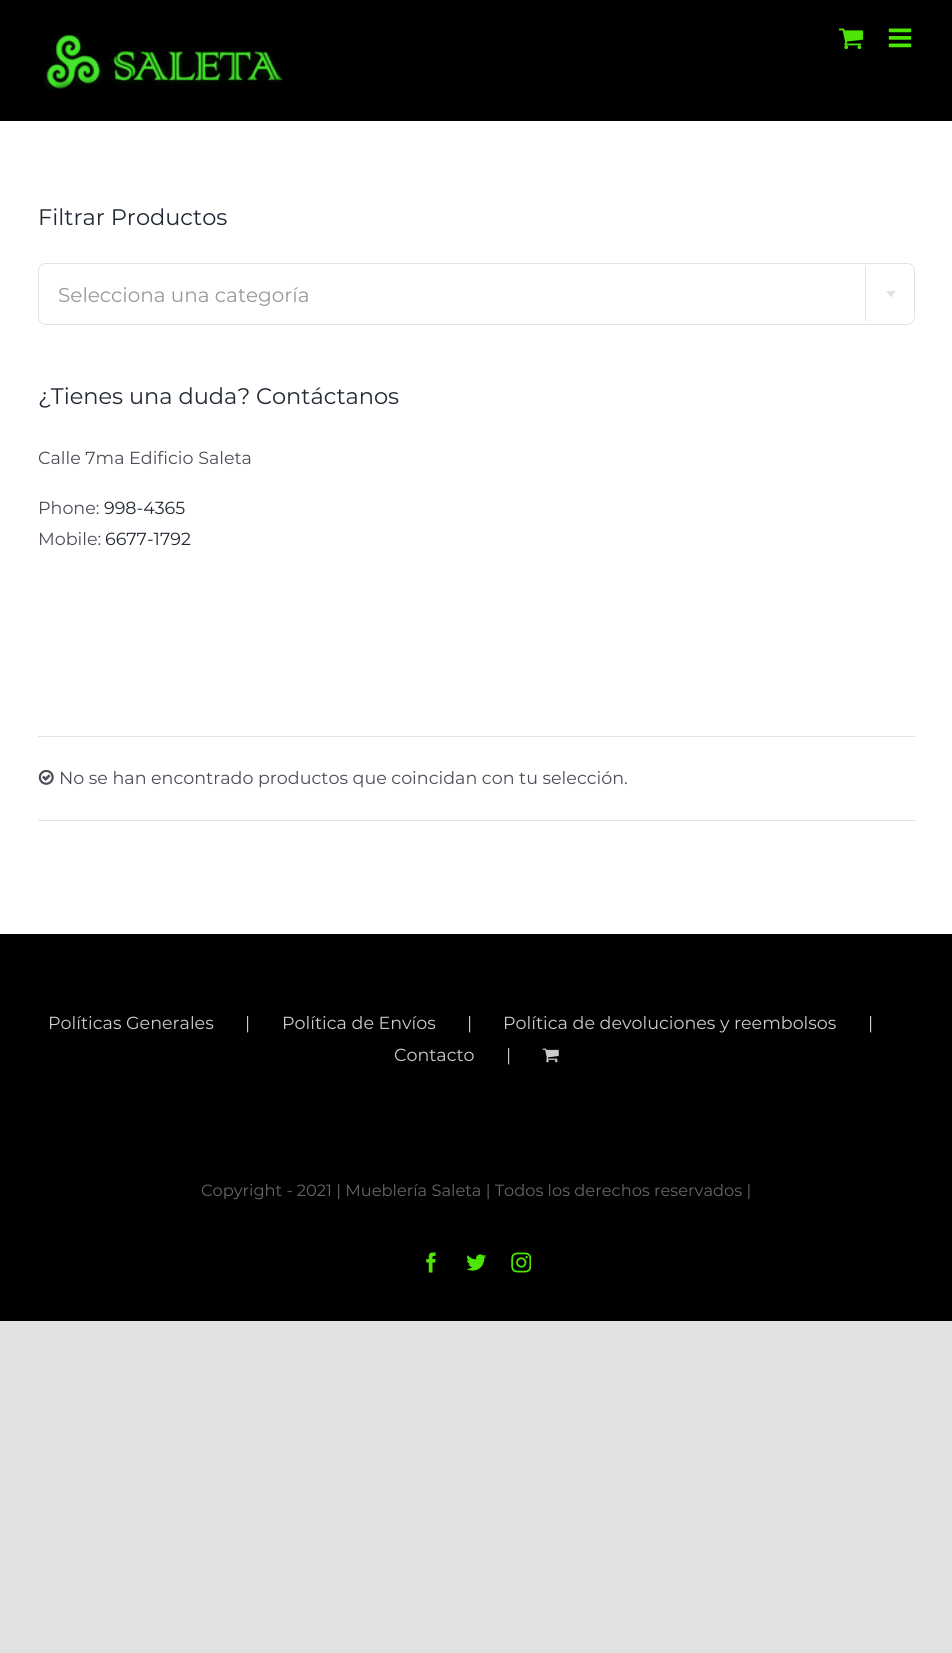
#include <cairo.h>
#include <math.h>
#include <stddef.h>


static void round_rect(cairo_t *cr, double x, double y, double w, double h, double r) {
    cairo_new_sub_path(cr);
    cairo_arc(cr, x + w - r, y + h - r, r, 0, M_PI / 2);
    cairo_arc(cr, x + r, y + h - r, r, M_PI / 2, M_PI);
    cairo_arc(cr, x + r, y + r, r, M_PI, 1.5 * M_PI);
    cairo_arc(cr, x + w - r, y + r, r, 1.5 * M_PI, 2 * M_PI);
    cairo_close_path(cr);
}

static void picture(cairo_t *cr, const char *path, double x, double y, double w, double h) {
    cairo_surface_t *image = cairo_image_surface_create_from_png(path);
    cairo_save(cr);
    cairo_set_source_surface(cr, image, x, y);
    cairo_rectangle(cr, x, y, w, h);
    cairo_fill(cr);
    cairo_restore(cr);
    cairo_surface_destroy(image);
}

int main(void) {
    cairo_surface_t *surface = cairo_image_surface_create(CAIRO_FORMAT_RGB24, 952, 1653);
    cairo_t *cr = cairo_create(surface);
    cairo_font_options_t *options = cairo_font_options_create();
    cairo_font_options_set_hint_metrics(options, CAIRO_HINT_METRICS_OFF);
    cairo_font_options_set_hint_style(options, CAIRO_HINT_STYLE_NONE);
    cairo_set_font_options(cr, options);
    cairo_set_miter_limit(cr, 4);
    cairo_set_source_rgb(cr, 0.886, 0.886, 0.886);
    cairo_paint(cr);
    cairo_set_source_rgb(cr, 1, 1, 1);
    cairo_rectangle(cr, 0, 121, 952, 813);
    cairo_fill(cr);
    cairo_set_source_rgb(cr, 0, 0, 0);
    cairo_rectangle(cr, 0, 0, 952, 121);
    cairo_fill(cr);
    picture(cr, "img1.png", 44, 34, 239, 56);
    picture(cr, "img2.png", 838, 28, 26, 22);
    picture(cr, "img3.png", 888, 28, 24, 20);
    cairo_select_font_face(cr, "Montserrat", CAIRO_FONT_SLANT_NORMAL, CAIRO_FONT_WEIGHT_NORMAL);
    cairo_set_font_size(cr, 22.5);
    cairo_set_source_rgb(cr, 0.129, 0.161, 0.204);
    cairo_move_to(cr, 38, 225);
    cairo_show_text(cr, "Filtrar Productos");
    round_rect(cr, 38.5, 263.5, 876, 61, 7.5);
    cairo_set_source_rgb(cr, 0.886, 0.886, 0.886);
    cairo_set_line_width(cr, 1);
    cairo_stroke(cr);
    cairo_set_font_size(cr, 20);
    cairo_set_source_rgb(cr, 0.6, 0.6, 0.6);
    cairo_move_to(cr, 58, 302);
    cairo_show_text(cr, "Selecciona una categoría");
    cairo_set_source_rgb(cr, 0.886, 0.886, 0.886);
    cairo_rectangle(cr, 865, 266, 1, 55);
    cairo_fill(cr);
    cairo_new_path(cr);
    cairo_move_to(cr, 886, 291);
    cairo_line_to(cr, 896, 291);
    cairo_line_to(cr, 891, 297.5);
    cairo_close_path(cr);
    cairo_fill(cr);
    cairo_set_font_size(cr, 22.5);
    cairo_set_source_rgb(cr, 0.129, 0.161, 0.204);
    cairo_move_to(cr, 38, 404);
    cairo_show_text(cr, "¿Tienes una duda? Contáctanos");
    cairo_set_font_size(cr, 17.5);
    cairo_set_source_rgb(cr, 0.29, 0.306, 0.341);
    cairo_move_to(cr, 38, 464);
    cairo_show_text(cr, "Calle 7ma Edificio Saleta");
    cairo_move_to(cr, 38, 514);
    cairo_show_text(cr, "Phone:");
    cairo_set_source_rgb(cr, 0.129, 0.161, 0.204);
    cairo_move_to(cr, 104, 514);
    cairo_show_text(cr, "998-4365");
    cairo_set_source_rgb(cr, 0.29, 0.306, 0.341);
    cairo_move_to(cr, 38, 545);
    cairo_show_text(cr, "Mobile:");
    cairo_set_source_rgb(cr, 0.129, 0.161, 0.204);
    cairo_move_to(cr, 105, 545);
    cairo_show_text(cr, "6677-1792");
    cairo_set_source_rgb(cr, 0.886, 0.886, 0.886);
    cairo_rectangle(cr, 38, 736, 877, 1);
    cairo_fill(cr);
    cairo_rectangle(cr, 38, 820, 877, 1);
    cairo_fill(cr);
    picture(cr, "img4.png", 38, 769, 16, 16);
    cairo_set_source_rgb(cr, 0.29, 0.306, 0.341);
    cairo_move_to(cr, 59, 784);
    cairo_show_text(cr, "No se han encontrado productos que coincidan con tu selección.");
    cairo_set_source_rgb(cr, 0, 0, 0);
    cairo_rectangle(cr, 0, 934, 952, 387);
    cairo_fill(cr);
    cairo_set_source_rgb(cr, 0.8, 0.8, 0.8);
    cairo_move_to(cr, 48, 1029);
    cairo_show_text(cr, "Políticas Generales");
    cairo_move_to(cr, 245, 1029);
    cairo_show_text(cr, "|");
    cairo_move_to(cr, 282, 1029);
    cairo_show_text(cr, "Política de Envíos");
    cairo_move_to(cr, 467, 1029);
    cairo_show_text(cr, "|");
    cairo_move_to(cr, 503, 1029);
    cairo_show_text(cr, "Política de devoluciones y reembolsos");
    cairo_move_to(cr, 868, 1029);
    cairo_show_text(cr, "|");
    cairo_move_to(cr, 394, 1061);
    cairo_show_text(cr, "Contacto");
    cairo_move_to(cr, 506, 1061);
    cairo_show_text(cr, "|");
    picture(cr, "img5.png", 542, 1048, 17, 15);
    cairo_set_font_size(cr, 16.25);
    cairo_set_source_rgb(cr, 0.4, 0.4, 0.4);
    cairo_move_to(cr, 201, 1196);
    cairo_show_text(cr, "Copyright - 2021 | Mueblería Saleta | Todos los derechos reservados |");
    picture(cr, "img6.png", 426, 1252, 10, 21);
    picture(cr, "img7.png", 466, 1254, 21, 17);
    picture(cr, "img8.png", 511, 1252, 20, 21);
    cairo_surface_write_to_png(surface, "page.png");
    cairo_font_options_destroy(options);
    cairo_destroy(cr);
    cairo_surface_destroy(surface);
    return 0;
}
